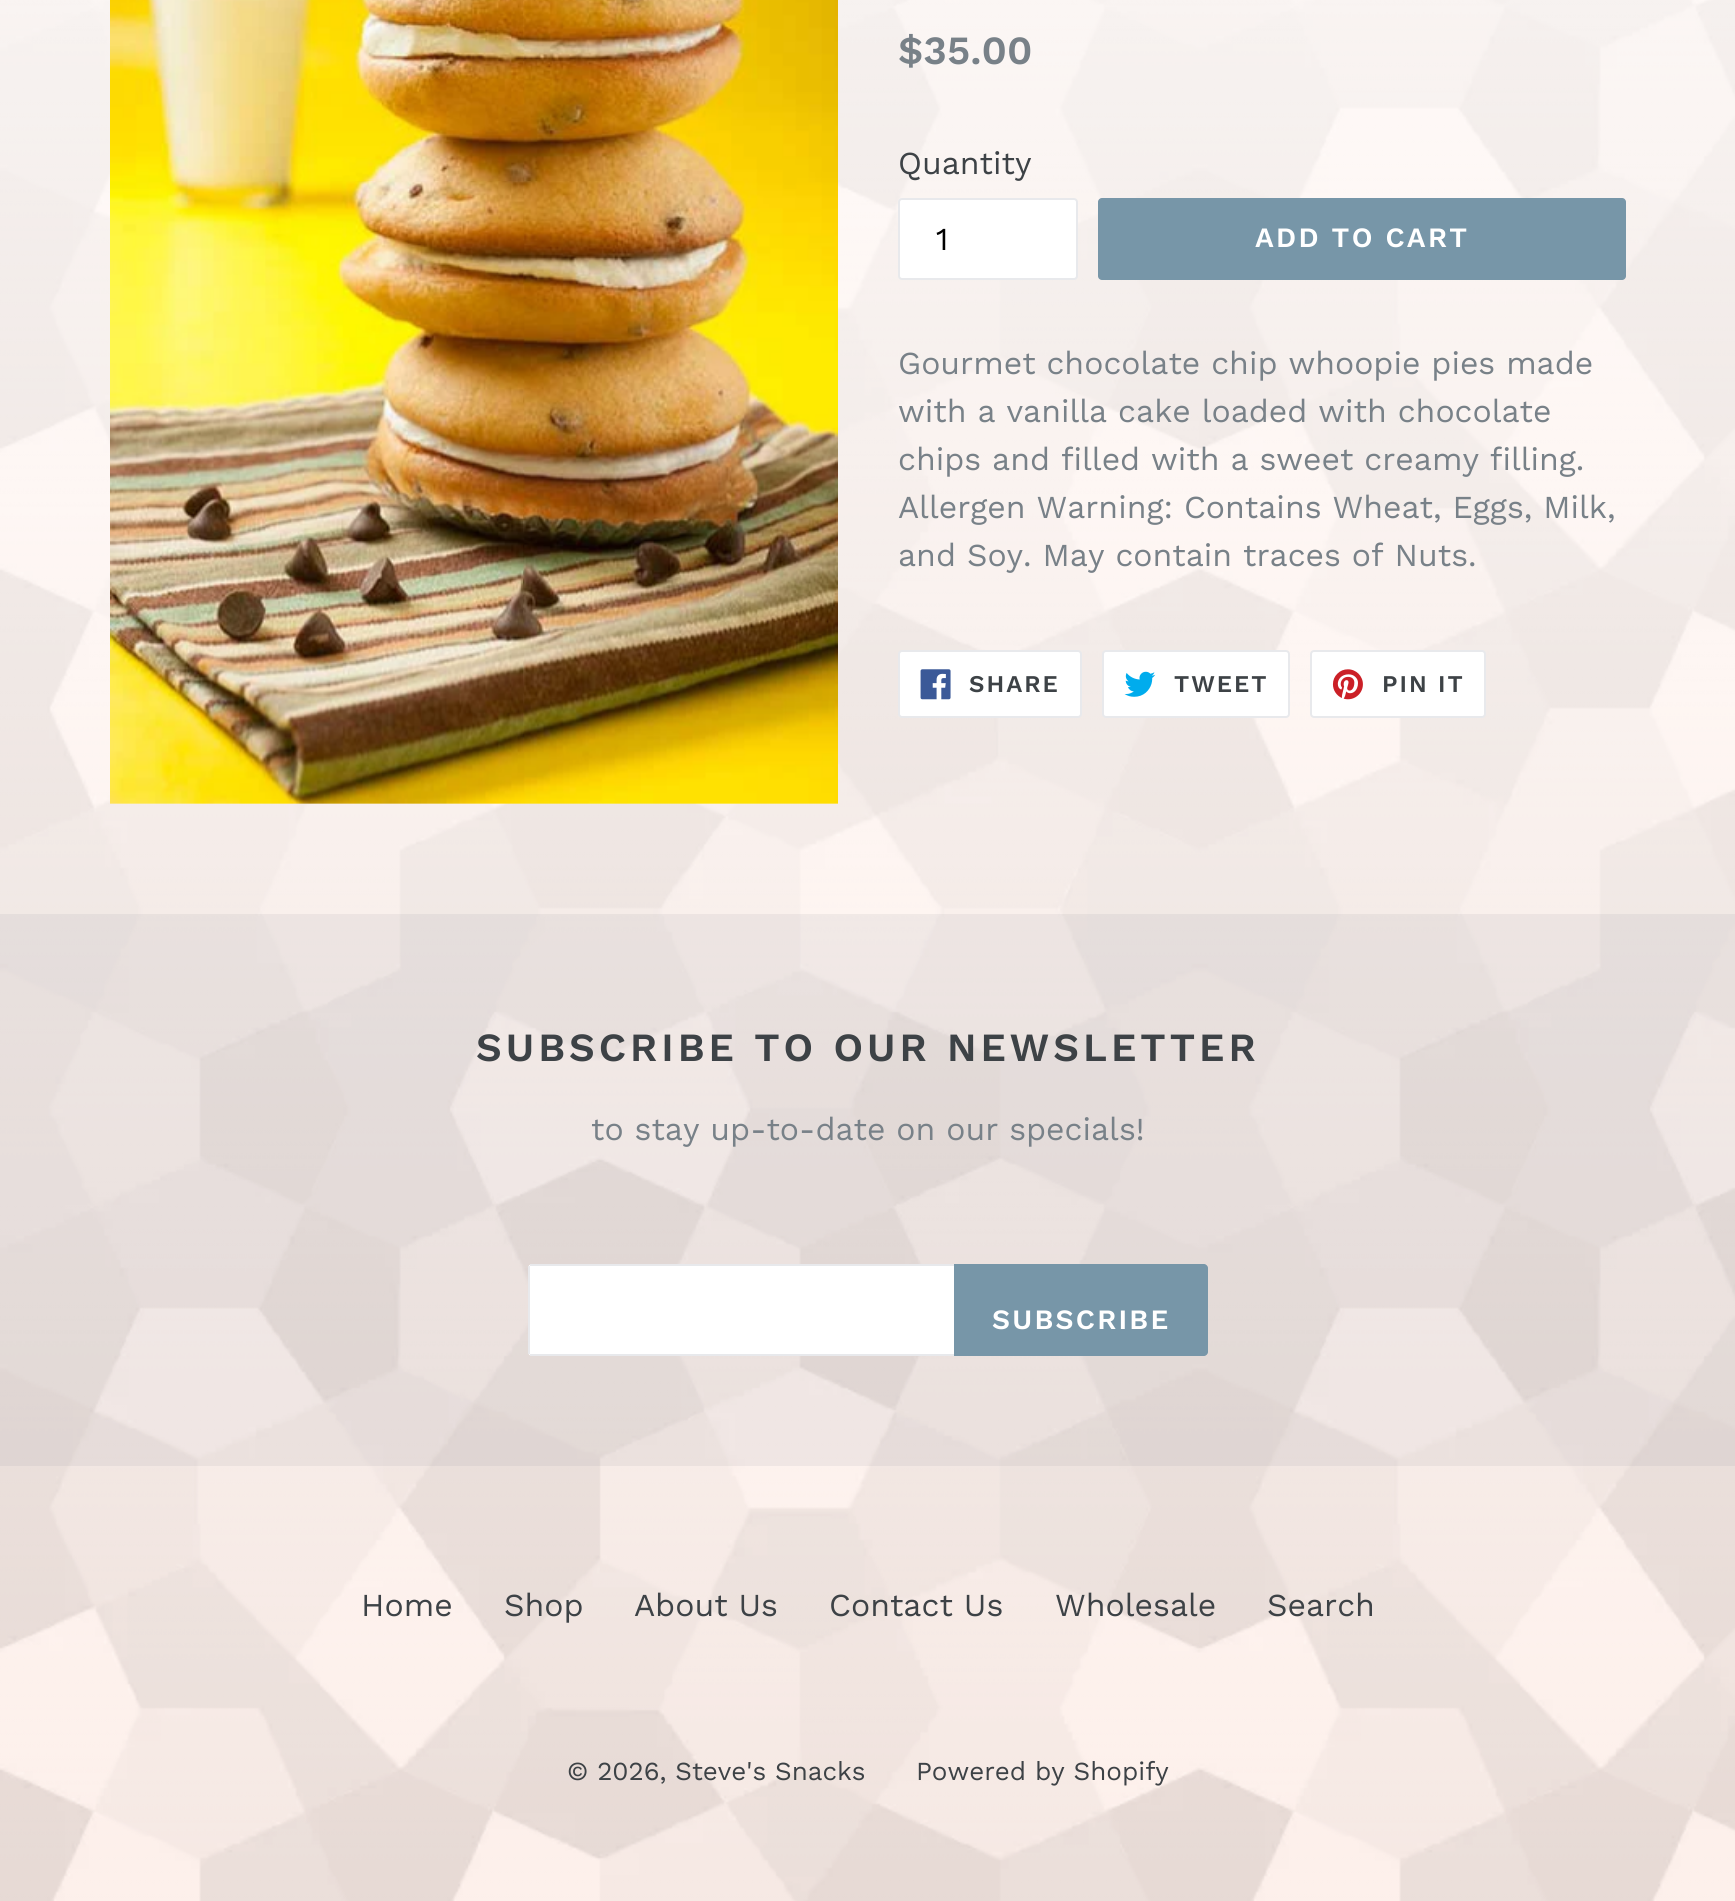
#include <cairo.h>
#include <math.h>
#include <stddef.h>


static void spaced_text(cairo_t *cr, double x, double y, const char *s, double letter, double word) {
    cairo_move_to(cr, x, y);
    while (*s) {
        char ch[5] = {0};
        int n = 0;
        do ch[n++] = *s++; while ((*s & 0xC0) == 0x80);
        cairo_show_text(cr, ch);
        cairo_rel_move_to(cr, letter + word * (*ch == ' '), 0);
    }
}

static void round_rect(cairo_t *cr, double x, double y, double w, double h, double r) {
    cairo_new_sub_path(cr);
    cairo_arc(cr, x + w - r, y + h - r, r, 0, M_PI / 2);
    cairo_arc(cr, x + r, y + h - r, r, M_PI / 2, M_PI);
    cairo_arc(cr, x + r, y + r, r, M_PI, 1.5 * M_PI);
    cairo_arc(cr, x + w - r, y + r, r, 1.5 * M_PI, 2 * M_PI);
    cairo_close_path(cr);
}

static void picture(cairo_t *cr, const char *path, double x, double y, double w, double h) {
    cairo_surface_t *image = cairo_image_surface_create_from_png(path);
    cairo_save(cr);
    cairo_set_source_surface(cr, image, x, y);
    cairo_rectangle(cr, x, y, w, h);
    cairo_fill(cr);
    cairo_restore(cr);
    cairo_surface_destroy(image);
}

int main(void) {
    cairo_surface_t *surface = cairo_image_surface_create(CAIRO_FORMAT_RGB24, 1735, 1901);
    cairo_t *cr = cairo_create(surface);
    cairo_font_options_t *options = cairo_font_options_create();
    cairo_font_options_set_hint_metrics(options, CAIRO_HINT_METRICS_OFF);
    cairo_font_options_set_hint_style(options, CAIRO_HINT_STYLE_NONE);
    cairo_set_font_options(cr, options);
    cairo_set_miter_limit(cr, 4);
    cairo_set_source_rgb(cr, 1, 1, 1);
    cairo_paint(cr);
    picture(cr, "img1.png", 0, 0, 1735, 1901);
    picture(cr, "img2.png", 110, 0, 728, 804);
    cairo_select_font_face(cr, "Work Sans SemiBold", CAIRO_FONT_SLANT_NORMAL, CAIRO_FONT_WEIGHT_NORMAL);
    cairo_set_font_size(cr, 40);
    cairo_set_source_rgb(cr, 0.471, 0.506, 0.533);
    cairo_move_to(cr, 898, 64);
    cairo_show_text(cr, "$35.00");
    cairo_select_font_face(cr, "Work Sans", CAIRO_FONT_SLANT_NORMAL, CAIRO_FONT_WEIGHT_NORMAL);
    cairo_set_font_size(cr, 32);
    cairo_set_source_rgb(cr, 0.239, 0.259, 0.275);
    cairo_move_to(cr, 898, 174);
    cairo_show_text(cr, "Quantity");
    cairo_set_source_rgb(cr, 1, 1, 1);
    round_rect(cr, 899, 199, 178, 80, 3);
    cairo_fill_preserve(cr);
    cairo_set_source_rgb(cr, 0.91, 0.914, 0.922);
    cairo_stroke(cr);
    cairo_set_source_rgb(cr, 0, 0, 0);
    cairo_move_to(cr, 936, 250);
    cairo_show_text(cr, "1");
    cairo_set_source_rgb(cr, 0.467, 0.588, 0.659);
    round_rect(cr, 1098, 198, 528, 82, 4);
    cairo_fill(cr);
    cairo_select_font_face(cr, "Work Sans SemiBold", CAIRO_FONT_SLANT_NORMAL, CAIRO_FONT_WEIGHT_NORMAL);
    cairo_set_font_size(cr, 28);
    cairo_set_source_rgb(cr, 1, 1, 1);
    spaced_text(cr, 1255, 247, "ADD TO CART", 2.25, 0);
    cairo_select_font_face(cr, "Work Sans", CAIRO_FONT_SLANT_NORMAL, CAIRO_FONT_WEIGHT_NORMAL);
    cairo_set_font_size(cr, 32);
    cairo_set_source_rgb(cr, 0.471, 0.506, 0.533);
    cairo_move_to(cr, 898, 374);
    cairo_show_text(cr, "Gourmet chocolate chip whoopie pies made");
    cairo_move_to(cr, 898, 422);
    cairo_show_text(cr, "with a vanilla cake loaded with chocolate");
    cairo_move_to(cr, 898, 470);
    cairo_show_text(cr, "chips and filled with a sweet creamy filling.");
    cairo_move_to(cr, 898, 518);
    cairo_show_text(cr, "Allergen Warning: Contains Wheat, Eggs, Milk,");
    cairo_move_to(cr, 898, 566);
    cairo_show_text(cr, "and Soy. May contain traces of Nuts.");
    cairo_set_source_rgb(cr, 1, 1, 1);
    round_rect(cr, 899, 651, 182, 66, 3);
    cairo_fill_preserve(cr);
    cairo_set_source_rgb(cr, 0.91, 0.914, 0.922);
    cairo_stroke(cr);
    picture(cr, "img3.png", 920, 669, 31, 31);
    cairo_select_font_face(cr, "Work Sans SemiBold", CAIRO_FONT_SLANT_NORMAL, CAIRO_FONT_WEIGHT_NORMAL);
    cairo_set_font_size(cr, 24);
    cairo_set_source_rgb(cr, 0.239, 0.259, 0.275);
    spaced_text(cr, 969, 692, "SHARE", 2, 0);
    cairo_set_source_rgb(cr, 1, 1, 1);
    round_rect(cr, 1103, 651, 186, 66, 3);
    cairo_fill_preserve(cr);
    cairo_set_source_rgb(cr, 0.91, 0.914, 0.922);
    cairo_stroke(cr);
    picture(cr, "img4.png", 1124, 671, 32, 26);
    cairo_set_source_rgb(cr, 0.239, 0.259, 0.275);
    spaced_text(cr, 1174, 692, "TWEET", 2, 0);
    cairo_set_source_rgb(cr, 1, 1, 1);
    round_rect(cr, 1311, 651, 174, 66, 3);
    cairo_fill_preserve(cr);
    cairo_set_source_rgb(cr, 0.91, 0.914, 0.922);
    cairo_stroke(cr);
    picture(cr, "img5.png", 1332, 669, 31, 31);
    cairo_set_source_rgb(cr, 0.239, 0.259, 0.275);
    spaced_text(cr, 1382, 692, "PIN IT", 2, 0);
    cairo_set_source_rgba(cr, 0.471, 0.506, 0.533, 0.1);
    cairo_rectangle(cr, 0, 914, 1735, 552);
    cairo_fill(cr);
    cairo_set_font_size(cr, 40);
    cairo_set_source_rgb(cr, 0.239, 0.259, 0.275);
    spaced_text(cr, 476, 1061, "SUBSCRIBE TO OUR NEWSLETTER", 4, 0);
    cairo_select_font_face(cr, "Work Sans", CAIRO_FONT_SLANT_NORMAL, CAIRO_FONT_WEIGHT_NORMAL);
    cairo_set_font_size(cr, 32);
    cairo_set_source_rgb(cr, 0.471, 0.506, 0.533);
    cairo_move_to(cr, 591, 1140);
    cairo_show_text(cr, "to stay up-to-date on our specials!");
    cairo_set_source_rgb(cr, 1, 1, 1);
    cairo_new_path(cr);
    cairo_move_to(cr, 532, 1264);
    cairo_line_to(cr, 954, 1264);
    cairo_line_to(cr, 954, 1356);
    cairo_line_to(cr, 532, 1356);
    cairo_curve_to(cr, 530, 1356, 528, 1354, 528, 1352);
    cairo_line_to(cr, 528, 1268);
    cairo_curve_to(cr, 528, 1266, 530, 1264, 532, 1264);
    cairo_close_path(cr);
    cairo_fill(cr);
    cairo_set_source_rgb(cr, 0.91, 0.914, 0.922);
    cairo_rectangle(cr, 530, 1264, 424, 2);
    cairo_fill(cr);
    cairo_rectangle(cr, 530, 1354, 424, 2);
    cairo_fill(cr);
    cairo_rectangle(cr, 528, 1266, 2, 88);
    cairo_fill(cr);
    cairo_set_source_rgb(cr, 0.467, 0.588, 0.659);
    cairo_new_path(cr);
    cairo_move_to(cr, 954, 1264);
    cairo_line_to(cr, 1204, 1264);
    cairo_curve_to(cr, 1206, 1264, 1208, 1266, 1208, 1268);
    cairo_line_to(cr, 1208, 1352);
    cairo_curve_to(cr, 1208, 1354, 1206, 1356, 1204, 1356);
    cairo_line_to(cr, 954, 1356);
    cairo_close_path(cr);
    cairo_fill(cr);
    cairo_select_font_face(cr, "Work Sans SemiBold", CAIRO_FONT_SLANT_NORMAL, CAIRO_FONT_WEIGHT_NORMAL);
    cairo_set_font_size(cr, 28);
    cairo_set_source_rgb(cr, 1, 1, 1);
    spaced_text(cr, 992, 1329, "SUBSCRIBE", 2.25, 0);
    cairo_select_font_face(cr, "Work Sans", CAIRO_FONT_SLANT_NORMAL, CAIRO_FONT_WEIGHT_NORMAL);
    cairo_set_font_size(cr, 32);
    cairo_set_source_rgb(cr, 0.239, 0.259, 0.275);
    cairo_move_to(cr, 361, 1616);
    cairo_show_text(cr, "Home");
    cairo_move_to(cr, 504, 1616);
    cairo_show_text(cr, "Shop");
    cairo_move_to(cr, 634, 1616);
    cairo_show_text(cr, "About Us");
    cairo_move_to(cr, 829, 1616);
    cairo_show_text(cr, "Contact Us");
    cairo_move_to(cr, 1055, 1616);
    cairo_show_text(cr, "Wholesale");
    cairo_move_to(cr, 1267, 1616);
    cairo_show_text(cr, "Search");
    cairo_set_font_size(cr, 26);
    cairo_move_to(cr, 567, 1780);
    cairo_show_text(cr, "© 2026, Steve's Snacks");
    cairo_move_to(cr, 916, 1780);
    cairo_show_text(cr, "Powered by Shopify");
    cairo_surface_write_to_png(surface, "page.png");
    cairo_font_options_destroy(options);
    cairo_destroy(cr);
    cairo_surface_destroy(surface);
    return 0;
}
